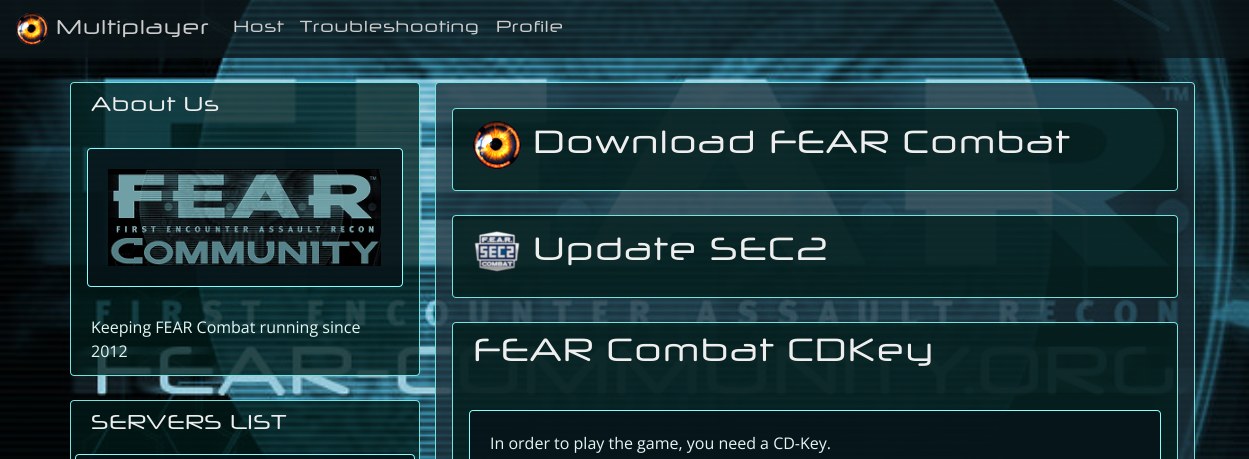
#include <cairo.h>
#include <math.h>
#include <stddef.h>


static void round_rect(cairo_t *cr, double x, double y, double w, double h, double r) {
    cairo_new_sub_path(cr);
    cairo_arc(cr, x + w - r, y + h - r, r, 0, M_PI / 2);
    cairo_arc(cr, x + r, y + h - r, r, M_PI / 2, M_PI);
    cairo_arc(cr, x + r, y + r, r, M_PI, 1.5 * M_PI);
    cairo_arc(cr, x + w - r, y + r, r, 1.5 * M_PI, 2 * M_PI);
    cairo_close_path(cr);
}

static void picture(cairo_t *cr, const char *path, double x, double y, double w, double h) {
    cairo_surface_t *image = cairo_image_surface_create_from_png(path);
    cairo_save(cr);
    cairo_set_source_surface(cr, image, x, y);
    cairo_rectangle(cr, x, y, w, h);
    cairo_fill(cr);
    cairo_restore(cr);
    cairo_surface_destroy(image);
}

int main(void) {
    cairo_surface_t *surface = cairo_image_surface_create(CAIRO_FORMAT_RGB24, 1249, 459);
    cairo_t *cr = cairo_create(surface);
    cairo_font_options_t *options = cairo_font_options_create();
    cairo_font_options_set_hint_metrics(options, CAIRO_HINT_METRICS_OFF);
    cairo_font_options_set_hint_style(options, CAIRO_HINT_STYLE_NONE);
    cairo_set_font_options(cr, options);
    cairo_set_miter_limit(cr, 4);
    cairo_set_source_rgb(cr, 1, 1, 1);
    cairo_paint(cr);
    picture(cr, "img1.png", 0, 0, 1249, 459);
    cairo_set_source_rgba(cr, 0.051, 0.094, 0.11, 0.75);
    cairo_rectangle(cr, 0, 0, 1249, 58);
    cairo_fill(cr);
    picture(cr, "img2.png", 16, 13, 32, 32);
    cairo_select_font_face(cr, "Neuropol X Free", CAIRO_FONT_SLANT_NORMAL, CAIRO_FONT_WEIGHT_NORMAL);
    cairo_set_font_size(cr, 20);
    cairo_set_source_rgb(cr, 0.8, 0.8, 0.8);
    cairo_move_to(cr, 56, 34);
    cairo_show_text(cr, "Multiplayer");
    cairo_set_font_size(cr, 16);
    cairo_move_to(cr, 233, 32);
    cairo_show_text(cr, "Host");
    cairo_move_to(cr, 300, 32);
    cairo_show_text(cr, "Troubleshooting");
    cairo_move_to(cr, 496, 32);
    cairo_show_text(cr, "Profile");
    cairo_set_source_rgba(cr, 0, 0.106, 0.094, 0.75);
    round_rect(cr, 70.5, 82.5, 349, 293, 3.5);
    cairo_fill_preserve(cr);
    cairo_set_source_rgb(cr, 0.459, 0.894, 0.871);
    cairo_set_line_width(cr, 1);
    cairo_stroke(cr);
    cairo_set_source_rgba(cr, 0, 0, 0, 0.12);
    cairo_rectangle(cr, 71, 131, 348, 1);
    cairo_fill(cr);
    cairo_set_font_size(cr, 20);
    cairo_set_source_rgb(cr, 0.933, 0.933, 0.933);
    cairo_move_to(cr, 91, 111);
    cairo_show_text(cr, "About Us");
    cairo_set_source_rgba(cr, 0.027, 0.075, 0.094, 0.84);
    round_rect(cr, 87.5, 148.5, 315, 138, 3.5);
    cairo_fill_preserve(cr);
    cairo_set_source_rgb(cr, 0.533, 1, 1);
    cairo_stroke(cr);
    picture(cr, "img3.png", 108, 169, 273, 97);
    cairo_select_font_face(cr, "Open Sans", CAIRO_FONT_SLANT_NORMAL, CAIRO_FONT_WEIGHT_NORMAL);
    cairo_set_font_size(cr, 16);
    cairo_set_source_rgb(cr, 0.89, 0.961, 0.949);
    cairo_move_to(cr, 91, 333);
    cairo_show_text(cr, "Keeping FEAR Combat running since");
    cairo_move_to(cr, 91, 357);
    cairo_show_text(cr, "2012");
    cairo_set_source_rgba(cr, 0, 0.106, 0.094, 0.75);
    round_rect(cr, 70.5, 400.5, 349, 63, 3.5);
    cairo_fill_preserve(cr);
    cairo_set_source_rgb(cr, 0.459, 0.894, 0.871);
    cairo_stroke(cr);
    cairo_set_source_rgba(cr, 0, 0, 0, 0.12);
    cairo_rectangle(cr, 71, 449, 348, 1);
    cairo_fill(cr);
    cairo_select_font_face(cr, "Neuropol X Free", CAIRO_FONT_SLANT_NORMAL, CAIRO_FONT_WEIGHT_NORMAL);
    cairo_set_font_size(cr, 20);
    cairo_set_source_rgb(cr, 0.933, 0.933, 0.933);
    cairo_move_to(cr, 91, 429);
    cairo_show_text(cr, "SERVERS LIST");
    cairo_set_source_rgba(cr, 0.027, 0.075, 0.094, 0.84);
    round_rect(cr, 75.5, 454.5, 339, 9, 3.5);
    cairo_fill_preserve(cr);
    cairo_set_source_rgb(cr, 0.533, 1, 1);
    cairo_stroke(cr);
    cairo_set_source_rgba(cr, 0.102, 0.176, 0.212, 0.75);
    round_rect(cr, 435.5, 82.5, 759, 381, 3.5);
    cairo_fill_preserve(cr);
    cairo_set_source_rgb(cr, 0.459, 0.894, 0.871);
    cairo_stroke(cr);
    cairo_set_source_rgba(cr, 0, 0.106, 0.094, 0.75);
    round_rect(cr, 452.5, 108.5, 725, 82, 3.5);
    cairo_fill_preserve(cr);
    cairo_set_source_rgb(cr, 0.459, 0.894, 0.871);
    cairo_stroke(cr);
    cairo_set_source_rgba(cr, 0, 0, 0, 0.12);
    cairo_rectangle(cr, 453, 189, 724, 1);
    cairo_fill(cr);
    picture(cr, "img4.png", 473, 121, 48, 48);
    cairo_set_font_size(cr, 32);
    cairo_set_source_rgb(cr, 0.933, 0.933, 0.933);
    cairo_move_to(cr, 533, 153);
    cairo_show_text(cr, "Download FEAR Combat");
    cairo_set_source_rgba(cr, 0, 0.106, 0.094, 0.75);
    round_rect(cr, 452.5, 215.5, 725, 82, 3.5);
    cairo_fill_preserve(cr);
    cairo_set_source_rgb(cr, 0.459, 0.894, 0.871);
    cairo_stroke(cr);
    cairo_set_source_rgba(cr, 0, 0, 0, 0.12);
    cairo_rectangle(cr, 453, 296, 724, 1);
    cairo_fill(cr);
    picture(cr, "img5.png", 474, 231, 46, 41);
    cairo_set_source_rgb(cr, 0.933, 0.933, 0.933);
    cairo_move_to(cr, 533, 260);
    cairo_show_text(cr, "Update SEC2");
    cairo_set_source_rgba(cr, 0, 0.106, 0.094, 0.75);
    round_rect(cr, 452.5, 322.5, 725, 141, 3.5);
    cairo_fill_preserve(cr);
    cairo_set_source_rgb(cr, 0.459, 0.894, 0.871);
    cairo_stroke(cr);
    cairo_set_source_rgba(cr, 0, 0, 0, 0.12);
    cairo_rectangle(cr, 453, 393, 724, 1);
    cairo_fill(cr);
    cairo_set_source_rgb(cr, 0.933, 0.933, 0.933);
    cairo_move_to(cr, 473, 361);
    cairo_show_text(cr, "FEAR Combat CDKey");
    cairo_set_source_rgba(cr, 0.027, 0.075, 0.094, 0.84);
    round_rect(cr, 469.5, 410.5, 691, 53, 3.5);
    cairo_fill_preserve(cr);
    cairo_set_source_rgb(cr, 0.533, 1, 1);
    cairo_stroke(cr);
    cairo_select_font_face(cr, "Open Sans", CAIRO_FONT_SLANT_NORMAL, CAIRO_FONT_WEIGHT_NORMAL);
    cairo_set_font_size(cr, 16);
    cairo_set_source_rgb(cr, 0.89, 0.961, 0.949);
    cairo_move_to(cr, 490, 449);
    cairo_show_text(cr, "In order to play the game, you need a CD-Key.");
    cairo_surface_write_to_png(surface, "page.png");
    cairo_font_options_destroy(options);
    cairo_destroy(cr);
    cairo_surface_destroy(surface);
    return 0;
}
